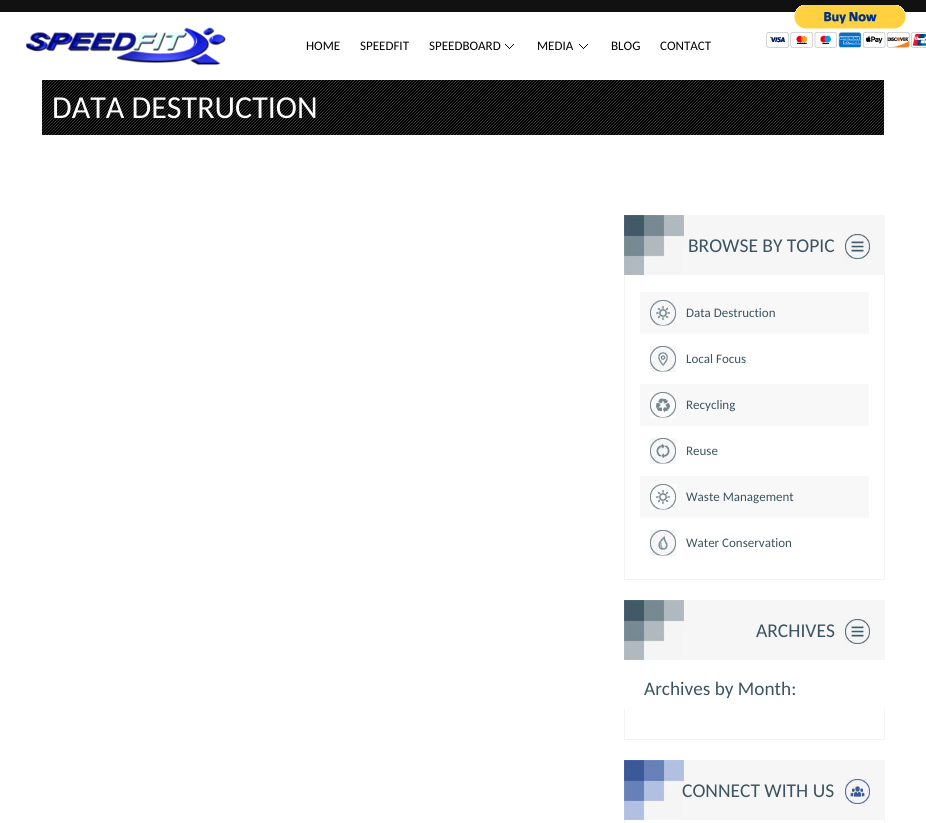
#include <cairo.h>
#include <math.h>
#include <stddef.h>


static void picture(cairo_t *cr, const char *path, double x, double y, double w, double h) {
    cairo_surface_t *image = cairo_image_surface_create_from_png(path);
    cairo_save(cr);
    cairo_set_source_surface(cr, image, x, y);
    cairo_rectangle(cr, x, y, w, h);
    cairo_fill(cr);
    cairo_restore(cr);
    cairo_surface_destroy(image);
}

int main(void) {
    cairo_surface_t *surface = cairo_image_surface_create(CAIRO_FORMAT_RGB24, 926, 823);
    cairo_t *cr = cairo_create(surface);
    cairo_font_options_t *options = cairo_font_options_create();
    cairo_font_options_set_hint_metrics(options, CAIRO_HINT_METRICS_OFF);
    cairo_font_options_set_hint_style(options, CAIRO_HINT_STYLE_NONE);
    cairo_set_font_options(cr, options);
    cairo_set_miter_limit(cr, 4);
    cairo_set_source_rgb(cr, 1, 1, 1);
    cairo_paint(cr);
    cairo_set_source_rgb(cr, 0.067, 0.067, 0.067);
    cairo_rectangle(cr, 0, 0, 926, 12);
    cairo_fill(cr);
    picture(cr, "img1.png", 26, 27, 203, 39);
    cairo_select_font_face(cr, "Carlito", CAIRO_FONT_SLANT_NORMAL, CAIRO_FONT_WEIGHT_NORMAL);
    cairo_set_font_size(cr, 13);
    cairo_set_source_rgb(cr, 0, 0, 0);
    cairo_move_to(cr, 306, 50);
    cairo_show_text(cr, "HOME");
    cairo_move_to(cr, 360, 50);
    cairo_show_text(cr, "SPEEDFIT");
    cairo_move_to(cr, 429, 50);
    cairo_show_text(cr, "SPEEDBOARD");
    picture(cr, "img2.png", 505, 44, 9, 5);
    cairo_move_to(cr, 537, 50);
    cairo_show_text(cr, "MEDIA");
    picture(cr, "img2.png", 579, 44, 9, 5);
    cairo_move_to(cr, 611, 50);
    cairo_show_text(cr, "BLOG");
    cairo_move_to(cr, 660, 50);
    cairo_show_text(cr, "CONTACT");
    picture(cr, "img3.png", 766, 5, 160, 43);
    cairo_rectangle(cr, 42, 80, 842, 55);
    cairo_fill(cr);
    picture(cr, "img4.png", 42, 80, 842, 55);
    cairo_set_font_size(cr, 32);
    cairo_set_source_rgb(cr, 1, 1, 1);
    cairo_move_to(cr, 52, 118);
    cairo_show_text(cr, "DATA DESTRUCTION");
    cairo_set_source_rgb(cr, 0.961, 0.961, 0.961);
    cairo_rectangle(cr, 684, 215, 201, 60);
    cairo_fill(cr);
    picture(cr, "img5.png", 624, 215, 60, 60);
    cairo_set_font_size(cr, 19.5);
    cairo_set_source_rgb(cr, 0.235, 0.329, 0.376);
    cairo_move_to(cr, 688, 252);
    cairo_show_text(cr, "BROWSE BY TOPIC");
    picture(cr, "img6.png", 845, 234, 25, 25);
    cairo_set_source_rgb(cr, 0.953, 0.953, 0.953);
    cairo_rectangle(cr, 884, 275, 1, 305);
    cairo_fill(cr);
    cairo_rectangle(cr, 624, 579, 261, 1);
    cairo_fill(cr);
    cairo_rectangle(cr, 624, 275, 1, 305);
    cairo_fill(cr);
    cairo_set_source_rgb(cr, 0.969, 0.969, 0.969);
    cairo_rectangle(cr, 640, 292, 229, 42);
    cairo_fill(cr);
    picture(cr, "img7.png", 650, 300, 26, 26);
    cairo_set_font_size(cr, 13);
    cairo_set_source_rgb(cr, 0.235, 0.329, 0.376);
    cairo_move_to(cr, 686, 317);
    cairo_show_text(cr, "Data Destruction");
    picture(cr, "img8.png", 650, 346, 26, 26);
    cairo_move_to(cr, 686, 363);
    cairo_show_text(cr, "Local Focus");
    cairo_set_source_rgb(cr, 0.969, 0.969, 0.969);
    cairo_rectangle(cr, 640, 384, 229, 42);
    cairo_fill(cr);
    picture(cr, "img9.png", 650, 392, 26, 26);
    cairo_set_source_rgb(cr, 0.235, 0.329, 0.376);
    cairo_move_to(cr, 686, 409);
    cairo_show_text(cr, "Recycling");
    picture(cr, "img10.png", 650, 438, 26, 26);
    cairo_move_to(cr, 686, 455);
    cairo_show_text(cr, "Reuse");
    cairo_set_source_rgb(cr, 0.969, 0.969, 0.969);
    cairo_rectangle(cr, 640, 476, 229, 42);
    cairo_fill(cr);
    picture(cr, "img11.png", 650, 484, 26, 26);
    cairo_set_source_rgb(cr, 0.235, 0.329, 0.376);
    cairo_move_to(cr, 686, 501);
    cairo_show_text(cr, "Waste Management");
    picture(cr, "img12.png", 650, 530, 26, 26);
    cairo_move_to(cr, 686, 547);
    cairo_show_text(cr, "Water Conservation");
    cairo_set_source_rgb(cr, 0.961, 0.961, 0.961);
    cairo_rectangle(cr, 684, 600, 201, 60);
    cairo_fill(cr);
    picture(cr, "img5.png", 624, 600, 60, 60);
    cairo_set_font_size(cr, 19.5);
    cairo_set_source_rgb(cr, 0.235, 0.329, 0.376);
    cairo_move_to(cr, 756, 637);
    cairo_show_text(cr, "ARCHIVES");
    picture(cr, "img6.png", 845, 619, 25, 25);
    cairo_set_font_size(cr, 19.25);
    cairo_move_to(cr, 644, 695);
    cairo_show_text(cr, "Archives by Month:");
    cairo_set_source_rgb(cr, 0.953, 0.953, 0.953);
    cairo_rectangle(cr, 884, 709, 1, 31);
    cairo_fill(cr);
    cairo_rectangle(cr, 624, 739, 261, 1);
    cairo_fill(cr);
    cairo_rectangle(cr, 624, 709, 1, 31);
    cairo_fill(cr);
    cairo_set_source_rgb(cr, 0.961, 0.961, 0.961);
    cairo_rectangle(cr, 684, 760, 201, 60);
    cairo_fill(cr);
    picture(cr, "img13.png", 624, 760, 60, 60);
    cairo_set_font_size(cr, 19.5);
    cairo_set_source_rgb(cr, 0.235, 0.329, 0.376);
    cairo_move_to(cr, 682, 797);
    cairo_show_text(cr, "CONNECT WITH US");
    picture(cr, "img14.png", 845, 779, 25, 25);
    cairo_set_source_rgb(cr, 0.953, 0.953, 0.953);
    cairo_rectangle(cr, 884, 820, 1, 3);
    cairo_fill(cr);
    cairo_rectangle(cr, 624, 820, 1, 3);
    cairo_fill(cr);
    cairo_surface_write_to_png(surface, "page.png");
    cairo_font_options_destroy(options);
    cairo_destroy(cr);
    cairo_surface_destroy(surface);
    return 0;
}
